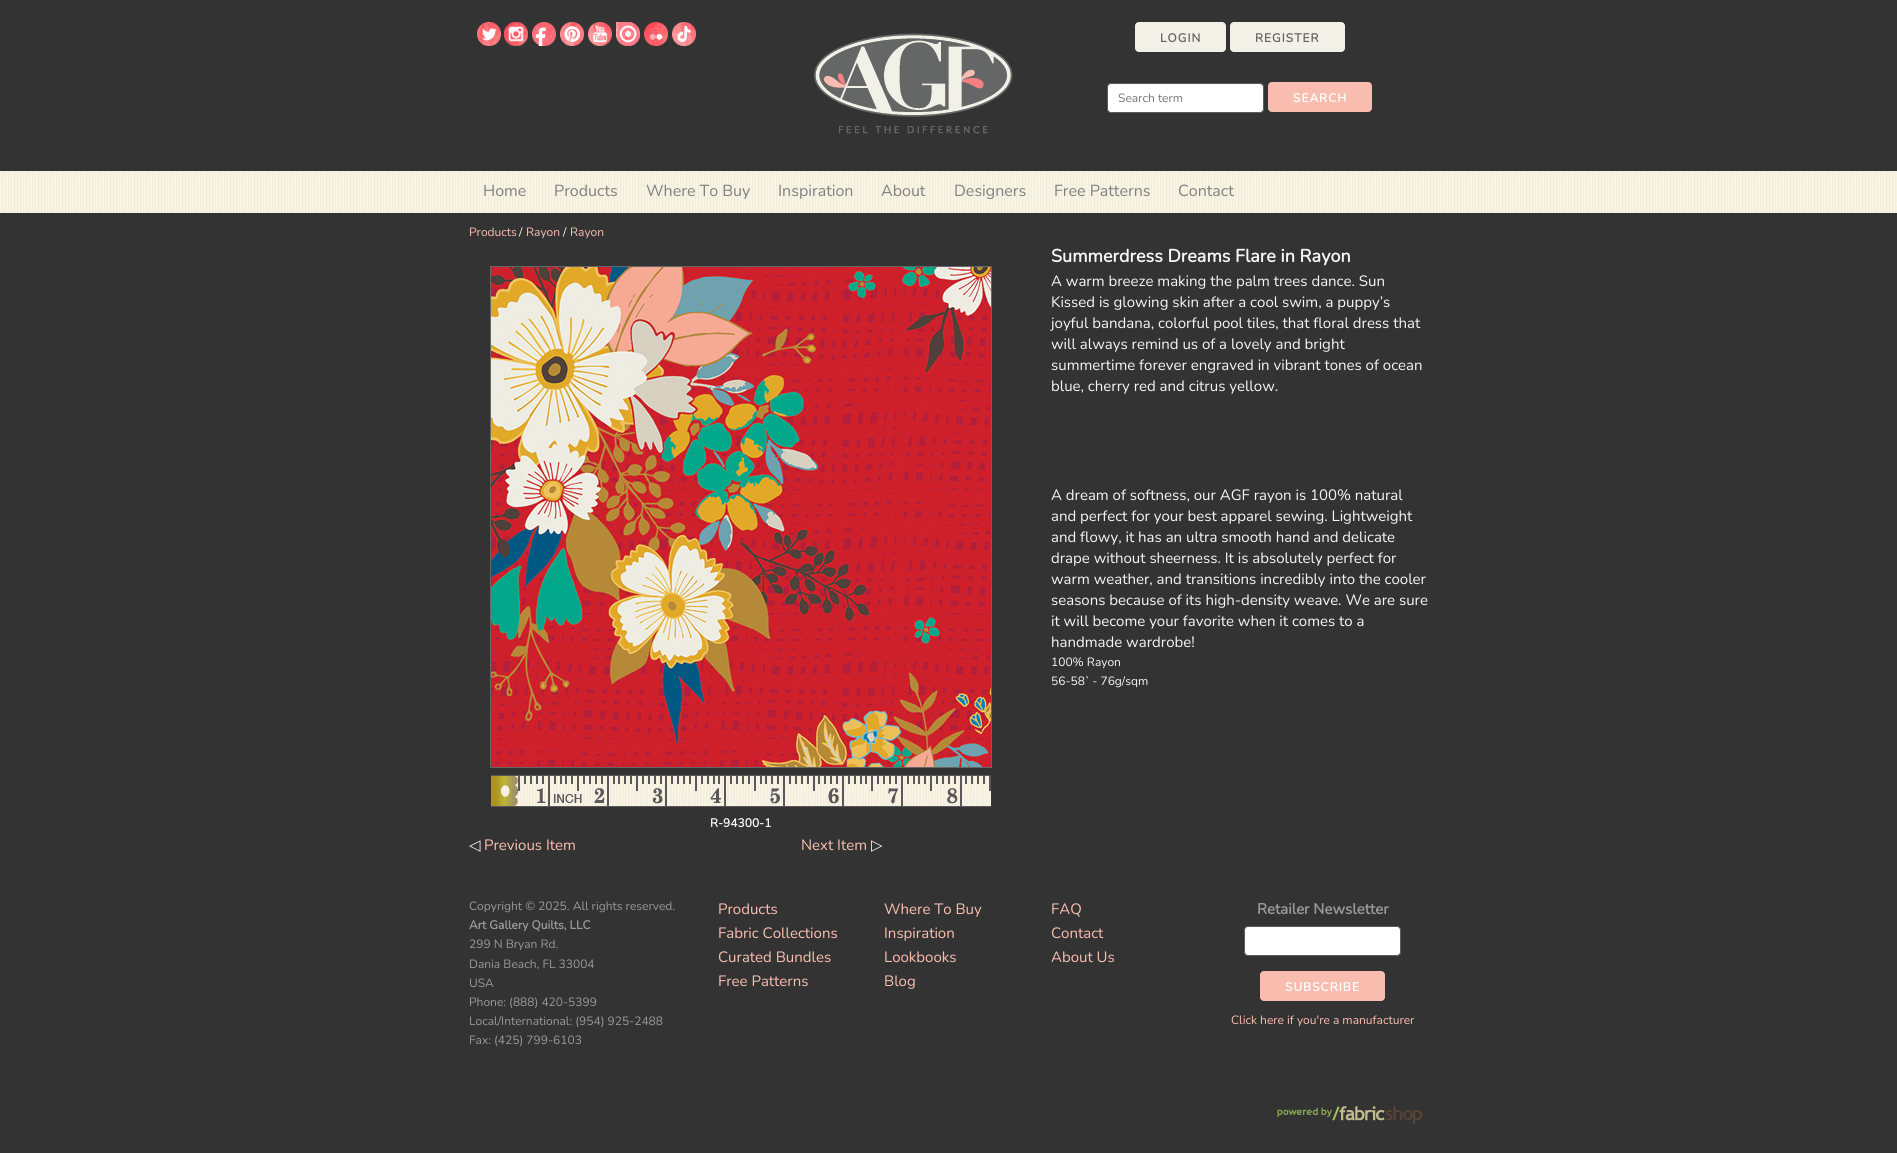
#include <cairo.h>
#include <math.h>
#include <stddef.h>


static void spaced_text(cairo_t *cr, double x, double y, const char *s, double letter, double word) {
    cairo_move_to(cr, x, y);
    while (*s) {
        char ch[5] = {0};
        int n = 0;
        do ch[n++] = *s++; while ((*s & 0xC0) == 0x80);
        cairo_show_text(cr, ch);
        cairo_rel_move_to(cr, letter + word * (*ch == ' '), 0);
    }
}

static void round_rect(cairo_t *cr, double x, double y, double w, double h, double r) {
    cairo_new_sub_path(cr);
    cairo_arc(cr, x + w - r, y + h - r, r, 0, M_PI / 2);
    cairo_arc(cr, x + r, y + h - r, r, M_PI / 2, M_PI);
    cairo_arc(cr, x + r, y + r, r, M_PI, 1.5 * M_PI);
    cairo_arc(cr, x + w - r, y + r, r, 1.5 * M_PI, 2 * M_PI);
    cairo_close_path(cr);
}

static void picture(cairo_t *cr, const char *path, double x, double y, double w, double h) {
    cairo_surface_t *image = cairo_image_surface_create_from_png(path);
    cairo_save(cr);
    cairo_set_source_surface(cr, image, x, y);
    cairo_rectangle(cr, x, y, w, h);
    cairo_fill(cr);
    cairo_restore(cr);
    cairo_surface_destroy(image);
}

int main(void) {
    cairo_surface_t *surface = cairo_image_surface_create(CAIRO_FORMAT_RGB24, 1897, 1153);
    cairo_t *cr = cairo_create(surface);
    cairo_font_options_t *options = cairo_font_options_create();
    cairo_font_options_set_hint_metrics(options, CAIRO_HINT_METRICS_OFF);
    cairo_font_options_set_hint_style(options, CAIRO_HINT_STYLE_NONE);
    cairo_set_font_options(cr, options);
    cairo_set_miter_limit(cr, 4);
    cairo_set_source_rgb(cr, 0.2, 0.2, 0.2);
    cairo_paint(cr);
    picture(cr, "img1.png", 477, 22, 24, 24);
    picture(cr, "img2.png", 504, 22, 24, 24);
    picture(cr, "img3.png", 532, 22, 24, 24);
    picture(cr, "img4.png", 560, 22, 24, 24);
    picture(cr, "img5.png", 588, 22, 24, 24);
    picture(cr, "img6.png", 616, 22, 24, 24);
    picture(cr, "img7.png", 644, 22, 24, 24);
    picture(cr, "img8.png", 672, 22, 24, 24);
    picture(cr, "img9.png", 814, 33, 199, 101);
    cairo_set_source_rgb(cr, 0.945, 0.945, 0.91);
    round_rect(cr, 1135.5, 22.5, 90, 29, 3.5);
    cairo_fill_preserve(cr);
    cairo_set_line_width(cr, 1);
    cairo_stroke(cr);
    cairo_select_font_face(cr, "Nunito", CAIRO_FONT_SLANT_NORMAL, CAIRO_FONT_WEIGHT_BOLD);
    cairo_set_font_size(cr, 12);
    cairo_set_source_rgb(cr, 0.4, 0.4, 0.4);
    spaced_text(cr, 1160, 42, "LOGIN", 1, 0);
    cairo_set_source_rgb(cr, 0.945, 0.945, 0.91);
    round_rect(cr, 1230.5, 22.5, 114, 29, 3.5);
    cairo_fill_preserve(cr);
    cairo_stroke(cr);
    cairo_set_source_rgb(cr, 0.4, 0.4, 0.4);
    spaced_text(cr, 1255, 42, "REGISTER", 1, 0);
    cairo_set_source_rgb(cr, 1, 1, 1);
    round_rect(cr, 1107.5, 83.5, 156, 29, 3.5);
    cairo_fill_preserve(cr);
    cairo_set_source_rgb(cr, 0.349, 0.365, 0.365);
    cairo_stroke(cr);
    cairo_select_font_face(cr, "Nunito ExtraLight", CAIRO_FONT_SLANT_NORMAL, CAIRO_FONT_WEIGHT_NORMAL);
    cairo_set_source_rgb(cr, 0.459, 0.459, 0.459);
    cairo_move_to(cr, 1118, 102);
    cairo_show_text(cr, "Search term");
    cairo_set_source_rgb(cr, 0.973, 0.741, 0.69);
    round_rect(cr, 1268.5, 82.5, 103, 29, 3.5);
    cairo_fill_preserve(cr);
    cairo_stroke(cr);
    cairo_select_font_face(cr, "Nunito", CAIRO_FONT_SLANT_NORMAL, CAIRO_FONT_WEIGHT_BOLD);
    cairo_set_source_rgb(cr, 1, 1, 1);
    spaced_text(cr, 1293, 102, "SEARCH", 1, 0);
    picture(cr, "img10.png", 0, 171, 1897, 42);
    cairo_select_font_face(cr, "Nunito ExtraLight", CAIRO_FONT_SLANT_NORMAL, CAIRO_FONT_WEIGHT_NORMAL);
    cairo_set_font_size(cr, 16);
    cairo_set_source_rgb(cr, 0.502, 0.502, 0.502);
    cairo_move_to(cr, 483, 196);
    cairo_show_text(cr, "Home");
    cairo_move_to(cr, 554, 196);
    cairo_show_text(cr, "Products");
    cairo_move_to(cr, 646, 196);
    cairo_show_text(cr, "Where To Buy");
    cairo_move_to(cr, 778, 196);
    cairo_show_text(cr, "Inspiration");
    cairo_move_to(cr, 881, 196);
    cairo_show_text(cr, "About");
    cairo_move_to(cr, 954, 196);
    cairo_show_text(cr, "Designers");
    cairo_move_to(cr, 1054, 196);
    cairo_show_text(cr, "Free Patterns");
    cairo_move_to(cr, 1178, 196);
    cairo_show_text(cr, "Contact");
    cairo_set_font_size(cr, 12);
    cairo_set_source_rgb(cr, 0.984, 0.749, 0.694);
    cairo_move_to(cr, 469, 236);
    cairo_show_text(cr, "Products");
    cairo_set_source_rgb(cr, 0.961, 0.961, 0.961);
    cairo_move_to(cr, 519, 236);
    cairo_show_text(cr, "/");
    cairo_set_source_rgb(cr, 0.984, 0.749, 0.694);
    cairo_move_to(cr, 526, 236);
    cairo_show_text(cr, "Rayon");
    cairo_set_source_rgb(cr, 0.961, 0.961, 0.961);
    cairo_move_to(cr, 563, 236);
    cairo_show_text(cr, "/");
    cairo_set_source_rgb(cr, 0.984, 0.749, 0.694);
    cairo_move_to(cr, 570, 236);
    cairo_show_text(cr, "Rayon");
    cairo_select_font_face(cr, "Nunito", CAIRO_FONT_SLANT_NORMAL, CAIRO_FONT_WEIGHT_BOLD);
    cairo_set_font_size(cr, 18);
    cairo_set_source_rgb(cr, 0.961, 0.961, 0.961);
    cairo_move_to(cr, 1051, 262);
    cairo_show_text(cr, "Summerdress Dreams Flare in Rayon");
    cairo_select_font_face(cr, "Nunito ExtraLight", CAIRO_FONT_SLANT_NORMAL, CAIRO_FONT_WEIGHT_NORMAL);
    cairo_set_font_size(cr, 15);
    cairo_move_to(cr, 1051, 286);
    cairo_show_text(cr, "A warm breeze making the palm trees dance. Sun");
    cairo_move_to(cr, 1051, 307);
    cairo_show_text(cr, "Kissed is glowing skin after a cool swim, a puppy’s");
    cairo_move_to(cr, 1051, 328);
    cairo_show_text(cr, "joyful bandana, colorful pool tiles, that floral dress that");
    cairo_move_to(cr, 1051, 349);
    cairo_show_text(cr, "will always remind us of a lovely and bright");
    cairo_move_to(cr, 1051, 370);
    cairo_show_text(cr, "summertime forever engraved in vibrant tones of ocean");
    cairo_move_to(cr, 1051, 391);
    cairo_show_text(cr, "blue, cherry red and citrus yellow.");
    cairo_move_to(cr, 1051, 500);
    cairo_show_text(cr, "A dream of softness, our AGF rayon is 100% natural");
    cairo_move_to(cr, 1051, 521);
    cairo_show_text(cr, "and perfect for your best apparel sewing. Lightweight");
    cairo_move_to(cr, 1051, 542);
    cairo_show_text(cr, "and flowy, it has an ultra smooth hand and delicate");
    cairo_move_to(cr, 1051, 563);
    cairo_show_text(cr, "drape without sheerness. It is absolutely perfect for");
    cairo_move_to(cr, 1051, 584);
    cairo_show_text(cr, "warm weather, and transitions incredibly into the cooler");
    cairo_move_to(cr, 1051, 605);
    cairo_show_text(cr, "seasons because of its high-density weave. We are sure");
    cairo_move_to(cr, 1051, 626);
    cairo_show_text(cr, "it will become your favorite when it comes to a");
    cairo_move_to(cr, 1051, 647);
    cairo_show_text(cr, "handmade wardrobe!");
    cairo_set_font_size(cr, 12);
    cairo_move_to(cr, 1051, 666);
    cairo_show_text(cr, "100% Rayon");
    cairo_move_to(cr, 1051, 685);
    cairo_show_text(cr, "56-58` - 76g/sqm");
    cairo_rectangle(cr, 490.5, 266.5, 501, 501);
    cairo_set_source_rgb(cr, 0.4, 0.4, 0.4);
    cairo_stroke(cr);
    picture(cr, "img11.png", 491, 267, 500, 500);
    picture(cr, "img12.png", 491, 775, 500, 32);
    cairo_select_font_face(cr, "Nunito", CAIRO_FONT_SLANT_NORMAL, CAIRO_FONT_WEIGHT_BOLD);
    cairo_set_source_rgb(cr, 0.961, 0.961, 0.961);
    cairo_move_to(cr, 710, 827);
    cairo_show_text(cr, "R-94300-1");
    cairo_select_font_face(cr, "DejaVu Sans", CAIRO_FONT_SLANT_NORMAL, CAIRO_FONT_WEIGHT_NORMAL);
    cairo_set_font_size(cr, 15);
    cairo_move_to(cr, 469, 850);
    cairo_show_text(cr, "◁");
    cairo_select_font_face(cr, "Nunito ExtraLight", CAIRO_FONT_SLANT_NORMAL, CAIRO_FONT_WEIGHT_NORMAL);
    cairo_set_source_rgb(cr, 0.984, 0.749, 0.694);
    cairo_move_to(cr, 484, 850);
    cairo_show_text(cr, "Previous Item");
    cairo_move_to(cr, 801, 850);
    cairo_show_text(cr, "Next Item");
    cairo_select_font_face(cr, "DejaVu Sans", CAIRO_FONT_SLANT_NORMAL, CAIRO_FONT_WEIGHT_NORMAL);
    cairo_set_source_rgb(cr, 0.961, 0.961, 0.961);
    cairo_move_to(cr, 871, 850);
    cairo_show_text(cr, "▷");
    cairo_select_font_face(cr, "Nunito ExtraLight", CAIRO_FONT_SLANT_NORMAL, CAIRO_FONT_WEIGHT_NORMAL);
    cairo_set_font_size(cr, 12);
    cairo_set_source_rgb(cr, 0.6, 0.6, 0.6);
    cairo_move_to(cr, 469, 910);
    cairo_show_text(cr, "Copyright © 2025. All rights reserved.");
    cairo_select_font_face(cr, "Nunito", CAIRO_FONT_SLANT_NORMAL, CAIRO_FONT_WEIGHT_BOLD);
    cairo_move_to(cr, 469, 929);
    cairo_show_text(cr, "Art Gallery Quilts, LLC");
    cairo_select_font_face(cr, "Nunito ExtraLight", CAIRO_FONT_SLANT_NORMAL, CAIRO_FONT_WEIGHT_NORMAL);
    cairo_move_to(cr, 469, 948);
    cairo_show_text(cr, "299 N Bryan Rd.");
    cairo_move_to(cr, 469, 968);
    cairo_show_text(cr, "Dania Beach, FL 33004");
    cairo_move_to(cr, 469, 987);
    cairo_show_text(cr, "USA");
    cairo_move_to(cr, 469, 1006);
    cairo_show_text(cr, "Phone: (888) 420-5399");
    cairo_move_to(cr, 469, 1025);
    cairo_show_text(cr, "Local/International: (954) 925-2488");
    cairo_move_to(cr, 469, 1044);
    cairo_show_text(cr, "Fax: (425) 799-6103");
    cairo_set_font_size(cr, 15);
    cairo_set_source_rgb(cr, 0.984, 0.749, 0.694);
    cairo_move_to(cr, 718, 914);
    cairo_show_text(cr, "Products");
    cairo_move_to(cr, 718, 938);
    cairo_show_text(cr, "Fabric Collections");
    cairo_move_to(cr, 718, 962);
    cairo_show_text(cr, "Curated Bundles");
    cairo_move_to(cr, 718, 986);
    cairo_show_text(cr, "Free Patterns");
    cairo_move_to(cr, 884, 914);
    cairo_show_text(cr, "Where To Buy");
    cairo_move_to(cr, 884, 938);
    cairo_show_text(cr, "Inspiration");
    cairo_move_to(cr, 884, 962);
    cairo_show_text(cr, "Lookbooks");
    cairo_move_to(cr, 884, 986);
    cairo_show_text(cr, "Blog");
    cairo_move_to(cr, 1051, 914);
    cairo_show_text(cr, "FAQ");
    cairo_move_to(cr, 1051, 938);
    cairo_show_text(cr, "Contact");
    cairo_move_to(cr, 1051, 962);
    cairo_show_text(cr, "About Us");
    cairo_select_font_face(cr, "Nunito", CAIRO_FONT_SLANT_NORMAL, CAIRO_FONT_WEIGHT_BOLD);
    cairo_set_source_rgb(cr, 0.6, 0.6, 0.6);
    cairo_move_to(cr, 1257, 914);
    cairo_show_text(cr, "Retailer Newsletter");
    cairo_set_source_rgb(cr, 1, 1, 1);
    round_rect(cr, 1244.5, 926.5, 156, 29, 3.5);
    cairo_fill_preserve(cr);
    cairo_set_source_rgb(cr, 0.349, 0.365, 0.365);
    cairo_stroke(cr);
    cairo_set_source_rgb(cr, 0.973, 0.741, 0.69);
    round_rect(cr, 1260.5, 971.5, 124, 29, 3.5);
    cairo_fill_preserve(cr);
    cairo_stroke(cr);
    cairo_set_font_size(cr, 12);
    cairo_set_source_rgb(cr, 1, 1, 1);
    spaced_text(cr, 1285, 991, "SUBSCRIBE", 1, 0);
    cairo_select_font_face(cr, "Nunito ExtraLight", CAIRO_FONT_SLANT_NORMAL, CAIRO_FONT_WEIGHT_NORMAL);
    cairo_set_source_rgb(cr, 0.984, 0.749, 0.694);
    cairo_move_to(cr, 1231, 1024);
    cairo_show_text(cr, "Click here if you're a manufacturer");
    picture(cr, "img13.png", 1277, 1106, 146, 19);
    cairo_surface_write_to_png(surface, "page.png");
    cairo_font_options_destroy(options);
    cairo_destroy(cr);
    cairo_surface_destroy(surface);
    return 0;
}
